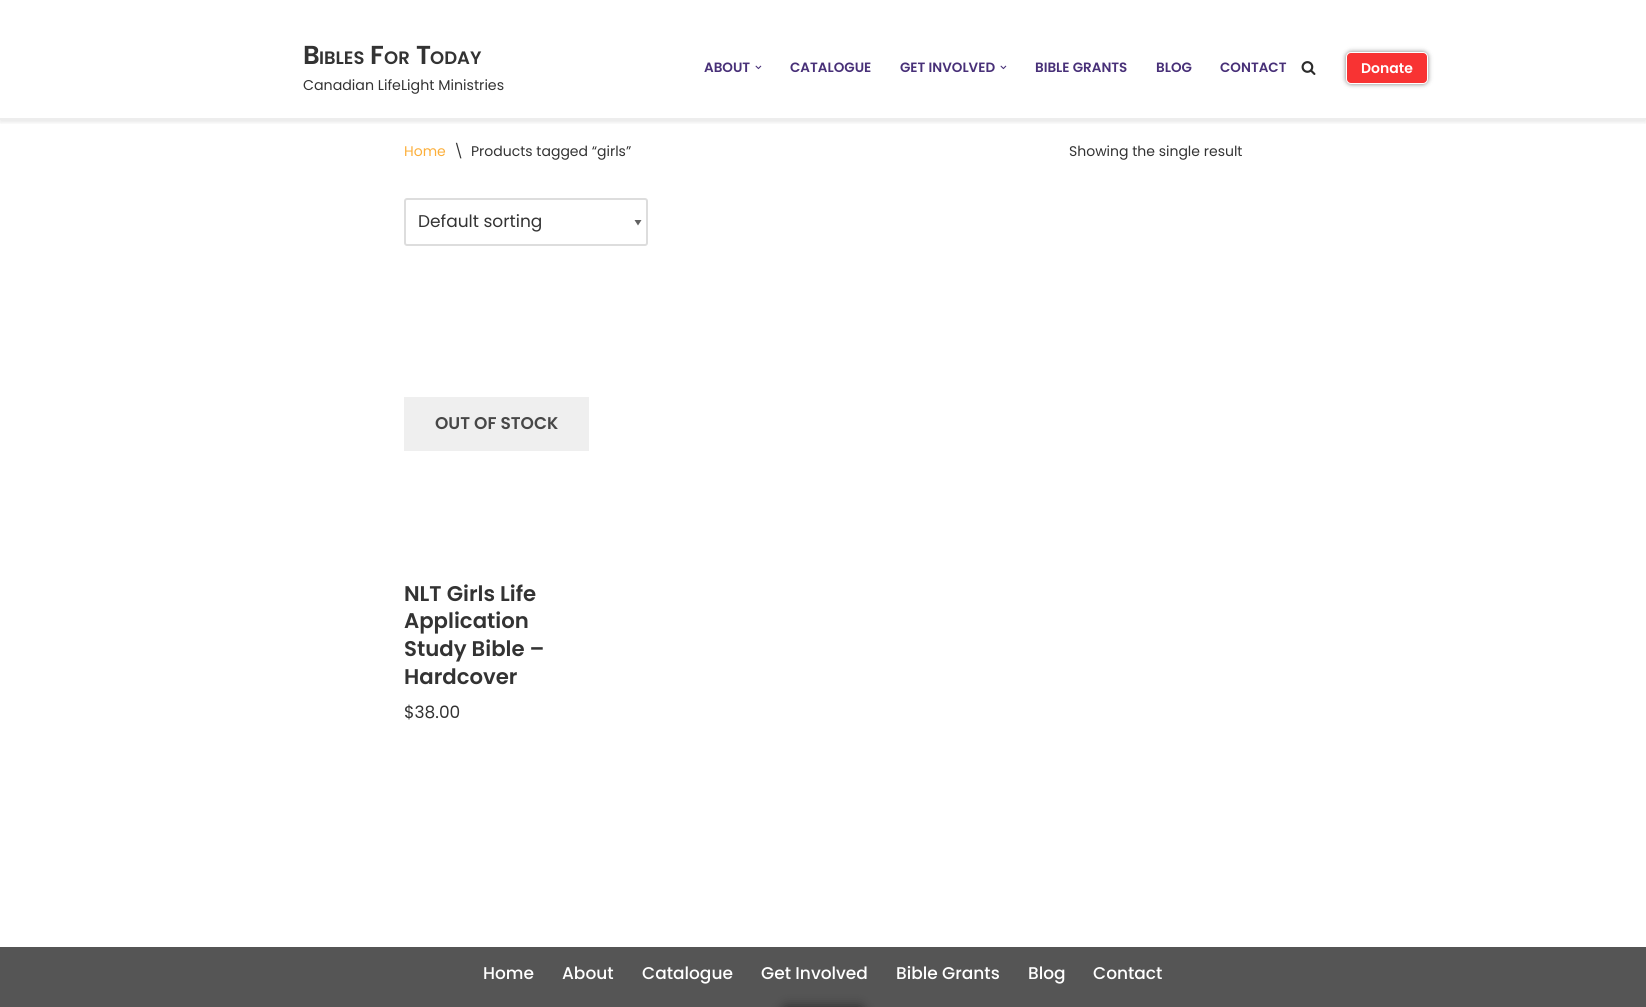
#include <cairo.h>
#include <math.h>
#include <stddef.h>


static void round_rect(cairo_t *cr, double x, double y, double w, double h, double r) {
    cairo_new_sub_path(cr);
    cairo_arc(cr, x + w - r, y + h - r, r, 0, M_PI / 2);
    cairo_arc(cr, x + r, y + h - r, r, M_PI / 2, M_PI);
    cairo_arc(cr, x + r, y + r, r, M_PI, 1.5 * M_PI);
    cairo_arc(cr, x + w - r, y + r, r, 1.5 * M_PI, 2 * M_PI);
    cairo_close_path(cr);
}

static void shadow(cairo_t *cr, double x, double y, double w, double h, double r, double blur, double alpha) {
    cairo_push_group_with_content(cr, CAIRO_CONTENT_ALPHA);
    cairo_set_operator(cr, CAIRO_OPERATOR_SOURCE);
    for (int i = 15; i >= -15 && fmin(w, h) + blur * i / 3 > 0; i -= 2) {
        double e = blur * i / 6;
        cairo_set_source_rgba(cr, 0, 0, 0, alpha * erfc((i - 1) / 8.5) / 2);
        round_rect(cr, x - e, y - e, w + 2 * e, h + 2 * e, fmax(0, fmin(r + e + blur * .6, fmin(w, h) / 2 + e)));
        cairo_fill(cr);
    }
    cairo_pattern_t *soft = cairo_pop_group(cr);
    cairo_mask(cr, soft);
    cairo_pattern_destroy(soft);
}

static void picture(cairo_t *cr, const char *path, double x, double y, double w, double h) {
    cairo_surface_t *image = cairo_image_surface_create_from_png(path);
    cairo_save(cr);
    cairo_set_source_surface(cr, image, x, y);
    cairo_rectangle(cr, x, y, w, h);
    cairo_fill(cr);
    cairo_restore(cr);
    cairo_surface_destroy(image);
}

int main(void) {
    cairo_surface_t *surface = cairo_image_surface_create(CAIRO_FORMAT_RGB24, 1646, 1007);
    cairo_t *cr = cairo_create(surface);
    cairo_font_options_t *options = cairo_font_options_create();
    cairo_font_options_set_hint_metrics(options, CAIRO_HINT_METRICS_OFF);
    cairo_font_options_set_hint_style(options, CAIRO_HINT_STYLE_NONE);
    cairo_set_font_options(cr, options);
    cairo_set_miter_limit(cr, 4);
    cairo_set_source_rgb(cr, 1, 1, 1);
    cairo_paint(cr);
    cairo_save(cr);
    cairo_rectangle(cr, 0, 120, 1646, 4);
    cairo_clip(cr);
    cairo_set_source_rgb(cr, 0, 0, 0);
    shadow(cr, 0, 2, 1646, 120, 0, 2.5, 0.1);
    cairo_restore(cr);
    cairo_set_source_rgb(cr, 0.929, 0.929, 0.929);
    cairo_rectangle(cr, 0, 118, 1646, 2);
    cairo_fill(cr);
    cairo_select_font_face(cr, "Poppins SemiBold", CAIRO_FONT_SLANT_NORMAL, CAIRO_FONT_WEIGHT_NORMAL);
    cairo_set_font_size(cr, 26);
    cairo_set_source_rgb(cr, 0.2, 0.2, 0.2);
    cairo_move_to(cr, 303, 64);
    cairo_show_text(cr, "B");
    cairo_set_font_size(cr, 18);
    cairo_move_to(cr, 319, 64);
    cairo_show_text(cr, "IBLES");
    cairo_set_font_size(cr, 26);
    cairo_move_to(cr, 370, 64);
    cairo_show_text(cr, "F");
    cairo_set_font_size(cr, 18);
    cairo_move_to(cr, 384, 64);
    cairo_show_text(cr, "OR");
    cairo_set_font_size(cr, 26);
    cairo_move_to(cr, 416, 64);
    cairo_show_text(cr, "T");
    cairo_set_font_size(cr, 18);
    cairo_move_to(cr, 430, 64);
    cairo_show_text(cr, "ODAY");
    cairo_select_font_face(cr, "Poppins", CAIRO_FONT_SLANT_NORMAL, CAIRO_FONT_WEIGHT_NORMAL);
    cairo_set_font_size(cr, 14.2);
    cairo_move_to(cr, 303, 90);
    cairo_show_text(cr, "Canadian LifeLight Ministries");
    cairo_select_font_face(cr, "Poppins SemiBold", CAIRO_FONT_SLANT_NORMAL, CAIRO_FONT_WEIGHT_NORMAL);
    cairo_set_font_size(cr, 13.5);
    cairo_set_source_rgb(cr, 0.282, 0.188, 0.471);
    cairo_move_to(cr, 704, 72);
    cairo_show_text(cr, "ABOUT");
    picture(cr, "img1.png", 755, 65, 7, 5);
    cairo_move_to(cr, 790, 72);
    cairo_show_text(cr, "CATALOGUE");
    cairo_move_to(cr, 900, 72);
    cairo_show_text(cr, "GET INVOLVED");
    picture(cr, "img1.png", 1000, 65, 7, 5);
    cairo_move_to(cr, 1035, 72);
    cairo_show_text(cr, "BIBLE GRANTS");
    cairo_move_to(cr, 1156, 72);
    cairo_show_text(cr, "BLOG");
    cairo_move_to(cr, 1220, 72);
    cairo_show_text(cr, "CONTACT");
    picture(cr, "img2.png", 1301, 61, 15, 14);
    cairo_set_source_rgb(cr, 0, 0, 0);
    shadow(cr, 1346, 52, 82, 32, 5, 2.5, 0.5);
    cairo_set_source_rgb(cr, 0.969, 0.2, 0.2);
    round_rect(cr, 1346.5, 52.5, 81, 31, 4.5);
    cairo_fill_preserve(cr);
    cairo_set_source_rgb(cr, 1, 1, 1);
    cairo_set_line_width(cr, 1);
    cairo_stroke(cr);
    cairo_set_font_size(cr, 14);
    cairo_move_to(cr, 1361, 73);
    cairo_show_text(cr, "Donate");
    cairo_select_font_face(cr, "Poppins", CAIRO_FONT_SLANT_NORMAL, CAIRO_FONT_WEIGHT_NORMAL);
    cairo_set_source_rgb(cr, 0.988, 0.686, 0.231);
    cairo_move_to(cr, 404, 156);
    cairo_show_text(cr, "Home");
    cairo_set_source_rgb(cr, 0.2, 0.2, 0.2);
    cairo_move_to(cr, 454, 156);
    cairo_show_text(cr, "\\");
    cairo_move_to(cr, 471, 156);
    cairo_show_text(cr, "Products tagged “girls”");
    cairo_move_to(cr, 1069, 156);
    cairo_show_text(cr, "Showing the single result");
    cairo_set_source_rgb(cr, 0.384, 0.384, 0.384);
    cairo_new_path(cr);
    cairo_move_to(cr, 641.5, 220);
    cairo_line_to(cr, 638, 225.5);
    cairo_line_to(cr, 634.5, 220);
    cairo_close_path(cr);
    cairo_fill(cr);
    round_rect(cr, 405, 199, 242, 46, 2);
    cairo_set_source_rgb(cr, 0.867, 0.867, 0.867);
    cairo_set_line_width(cr, 2);
    cairo_stroke(cr);
    cairo_set_font_size(cr, 17);
    cairo_set_source_rgb(cr, 0.2, 0.2, 0.2);
    cairo_move_to(cr, 418, 227);
    cairo_show_text(cr, "Default sorting");
    cairo_set_source_rgb(cr, 0.937, 0.937, 0.937);
    cairo_rectangle(cr, 404, 397, 185, 54);
    cairo_fill(cr);
    cairo_select_font_face(cr, "Poppins SemiBold", CAIRO_FONT_SLANT_NORMAL, CAIRO_FONT_WEIGHT_NORMAL);
    cairo_set_source_rgb(cr, 0.278, 0.278, 0.278);
    cairo_move_to(cr, 435, 429);
    cairo_show_text(cr, "OUT OF STOCK");
    cairo_set_font_size(cr, 21.25);
    cairo_set_source_rgb(cr, 0.2, 0.2, 0.2);
    cairo_move_to(cr, 404, 601);
    cairo_show_text(cr, "NLT Girls Life");
    cairo_move_to(cr, 404, 628);
    cairo_show_text(cr, "Application");
    cairo_move_to(cr, 404, 656);
    cairo_show_text(cr, "Study Bible –");
    cairo_move_to(cr, 404, 684);
    cairo_show_text(cr, "Hardcover");
    cairo_select_font_face(cr, "Poppins", CAIRO_FONT_SLANT_NORMAL, CAIRO_FONT_WEIGHT_NORMAL);
    cairo_set_font_size(cr, 17);
    cairo_move_to(cr, 404, 718);
    cairo_show_text(cr, "$38.00");
    cairo_set_source_rgb(cr, 0.333, 0.333, 0.333);
    cairo_rectangle(cr, 0, 947, 1646, 60);
    cairo_fill(cr);
    cairo_select_font_face(cr, "Poppins Medium", CAIRO_FONT_SLANT_NORMAL, CAIRO_FONT_WEIGHT_NORMAL);
    cairo_set_source_rgb(cr, 1, 1, 1);
    cairo_move_to(cr, 483, 979);
    cairo_show_text(cr, "Home");
    cairo_move_to(cr, 562, 979);
    cairo_show_text(cr, "About");
    cairo_move_to(cr, 642, 979);
    cairo_show_text(cr, "Catalogue");
    cairo_move_to(cr, 761, 979);
    cairo_show_text(cr, "Get Involved");
    cairo_move_to(cr, 896, 979);
    cairo_show_text(cr, "Bible Grants");
    cairo_move_to(cr, 1028, 979);
    cairo_show_text(cr, "Blog");
    cairo_move_to(cr, 1093, 979);
    cairo_show_text(cr, "Contact");
    cairo_set_source_rgb(cr, 0, 0, 0);
    shadow(cr, 782, 1007, 82, 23, 5, 6, 0.5);
    cairo_surface_write_to_png(surface, "page.png");
    cairo_font_options_destroy(options);
    cairo_destroy(cr);
    cairo_surface_destroy(surface);
    return 0;
}
